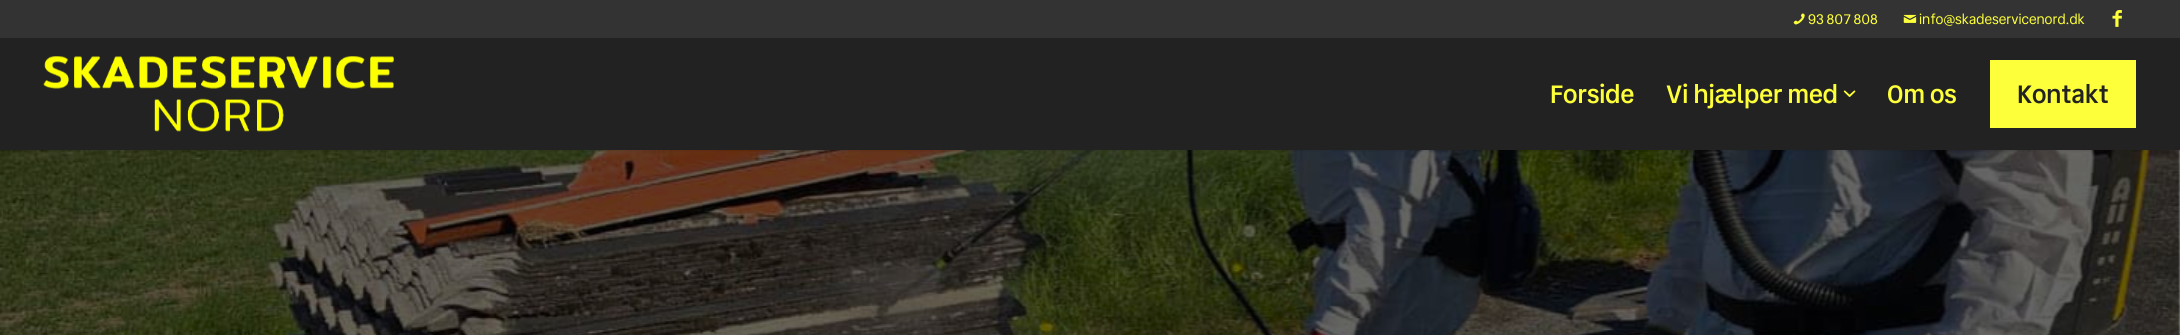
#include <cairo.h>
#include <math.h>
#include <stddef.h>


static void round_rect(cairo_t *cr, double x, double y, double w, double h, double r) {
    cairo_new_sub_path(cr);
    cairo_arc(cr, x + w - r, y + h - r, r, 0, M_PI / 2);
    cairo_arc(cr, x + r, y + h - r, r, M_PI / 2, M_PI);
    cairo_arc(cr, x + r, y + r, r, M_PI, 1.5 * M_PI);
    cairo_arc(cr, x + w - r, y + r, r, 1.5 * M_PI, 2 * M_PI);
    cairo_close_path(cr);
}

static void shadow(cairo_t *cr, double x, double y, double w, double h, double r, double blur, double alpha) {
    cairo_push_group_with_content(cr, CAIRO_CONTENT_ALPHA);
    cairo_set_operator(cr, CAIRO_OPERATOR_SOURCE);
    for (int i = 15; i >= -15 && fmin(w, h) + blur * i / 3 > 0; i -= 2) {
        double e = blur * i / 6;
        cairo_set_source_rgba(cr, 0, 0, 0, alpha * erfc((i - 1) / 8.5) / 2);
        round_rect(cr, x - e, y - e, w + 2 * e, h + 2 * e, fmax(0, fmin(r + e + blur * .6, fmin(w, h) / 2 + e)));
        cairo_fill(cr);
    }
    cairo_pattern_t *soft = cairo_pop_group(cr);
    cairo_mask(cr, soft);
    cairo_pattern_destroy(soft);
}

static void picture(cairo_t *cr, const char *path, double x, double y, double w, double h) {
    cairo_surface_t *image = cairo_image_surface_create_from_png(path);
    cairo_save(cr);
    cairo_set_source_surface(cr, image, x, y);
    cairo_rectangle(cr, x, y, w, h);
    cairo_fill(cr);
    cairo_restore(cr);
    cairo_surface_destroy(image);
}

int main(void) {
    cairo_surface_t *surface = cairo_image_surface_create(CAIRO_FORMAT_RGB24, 2180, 335);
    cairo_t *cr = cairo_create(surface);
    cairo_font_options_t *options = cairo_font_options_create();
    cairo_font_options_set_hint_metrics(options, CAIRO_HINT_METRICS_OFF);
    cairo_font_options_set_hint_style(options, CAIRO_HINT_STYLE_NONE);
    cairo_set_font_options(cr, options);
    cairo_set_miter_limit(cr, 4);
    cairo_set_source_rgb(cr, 1, 1, 1);
    cairo_paint(cr);
    picture(cr, "img6.png", 0, 150, 2180, 185);
    cairo_set_source_rgb(cr, 0, 0, 0);
    shadow(cr, -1, -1, 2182, 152, 0, 1, 0.1);
    cairo_set_source_rgb(cr, 0.2, 0.2, 0.2);
    cairo_rectangle(cr, 0, 0, 2180, 38);
    cairo_fill(cr);
    picture(cr, "img1.png", 1793, 13, 12, 12);
    cairo_select_font_face(cr, "Vend Sans", CAIRO_FONT_SLANT_NORMAL, CAIRO_FONT_WEIGHT_NORMAL);
    cairo_set_font_size(cr, 13.75);
    cairo_set_source_rgb(cr, 0.988, 1, 0.227);
    cairo_move_to(cr, 1808, 24);
    cairo_show_text(cr, "93 807 808");
    picture(cr, "img2.png", 1903, 14, 14, 9);
    cairo_move_to(cr, 1919, 24);
    cairo_show_text(cr, "info@skadeservicenord.dk");
    picture(cr, "img3.png", 2112, 10, 10, 17);
    cairo_set_source_rgb(cr, 0.133, 0.133, 0.133);
    cairo_rectangle(cr, 0, 38, 2180, 112);
    cairo_fill(cr);
    picture(cr, "img4.png", 43, 56, 351, 76);
    cairo_select_font_face(cr, "Vend Sans SemiBold", CAIRO_FONT_SLANT_NORMAL, CAIRO_FONT_WEIGHT_NORMAL);
    cairo_set_font_size(cr, 25);
    cairo_set_source_rgb(cr, 0.988, 1, 0.227);
    cairo_move_to(cr, 1550, 103);
    cairo_show_text(cr, "Forside");
    cairo_move_to(cr, 1666, 103);
    cairo_show_text(cr, "Vi hjælper med");
    picture(cr, "img5.png", 1843, 90, 13, 7);
    cairo_move_to(cr, 1887, 103);
    cairo_show_text(cr, "Om os");
    cairo_rectangle(cr, 1990, 60, 146, 68);
    cairo_fill(cr);
    cairo_set_source_rgb(cr, 0.133, 0.133, 0.133);
    cairo_move_to(cr, 2017, 103);
    cairo_show_text(cr, "Kontakt");
    cairo_surface_write_to_png(surface, "page.png");
    cairo_font_options_destroy(options);
    cairo_destroy(cr);
    cairo_surface_destroy(surface);
    return 0;
}
